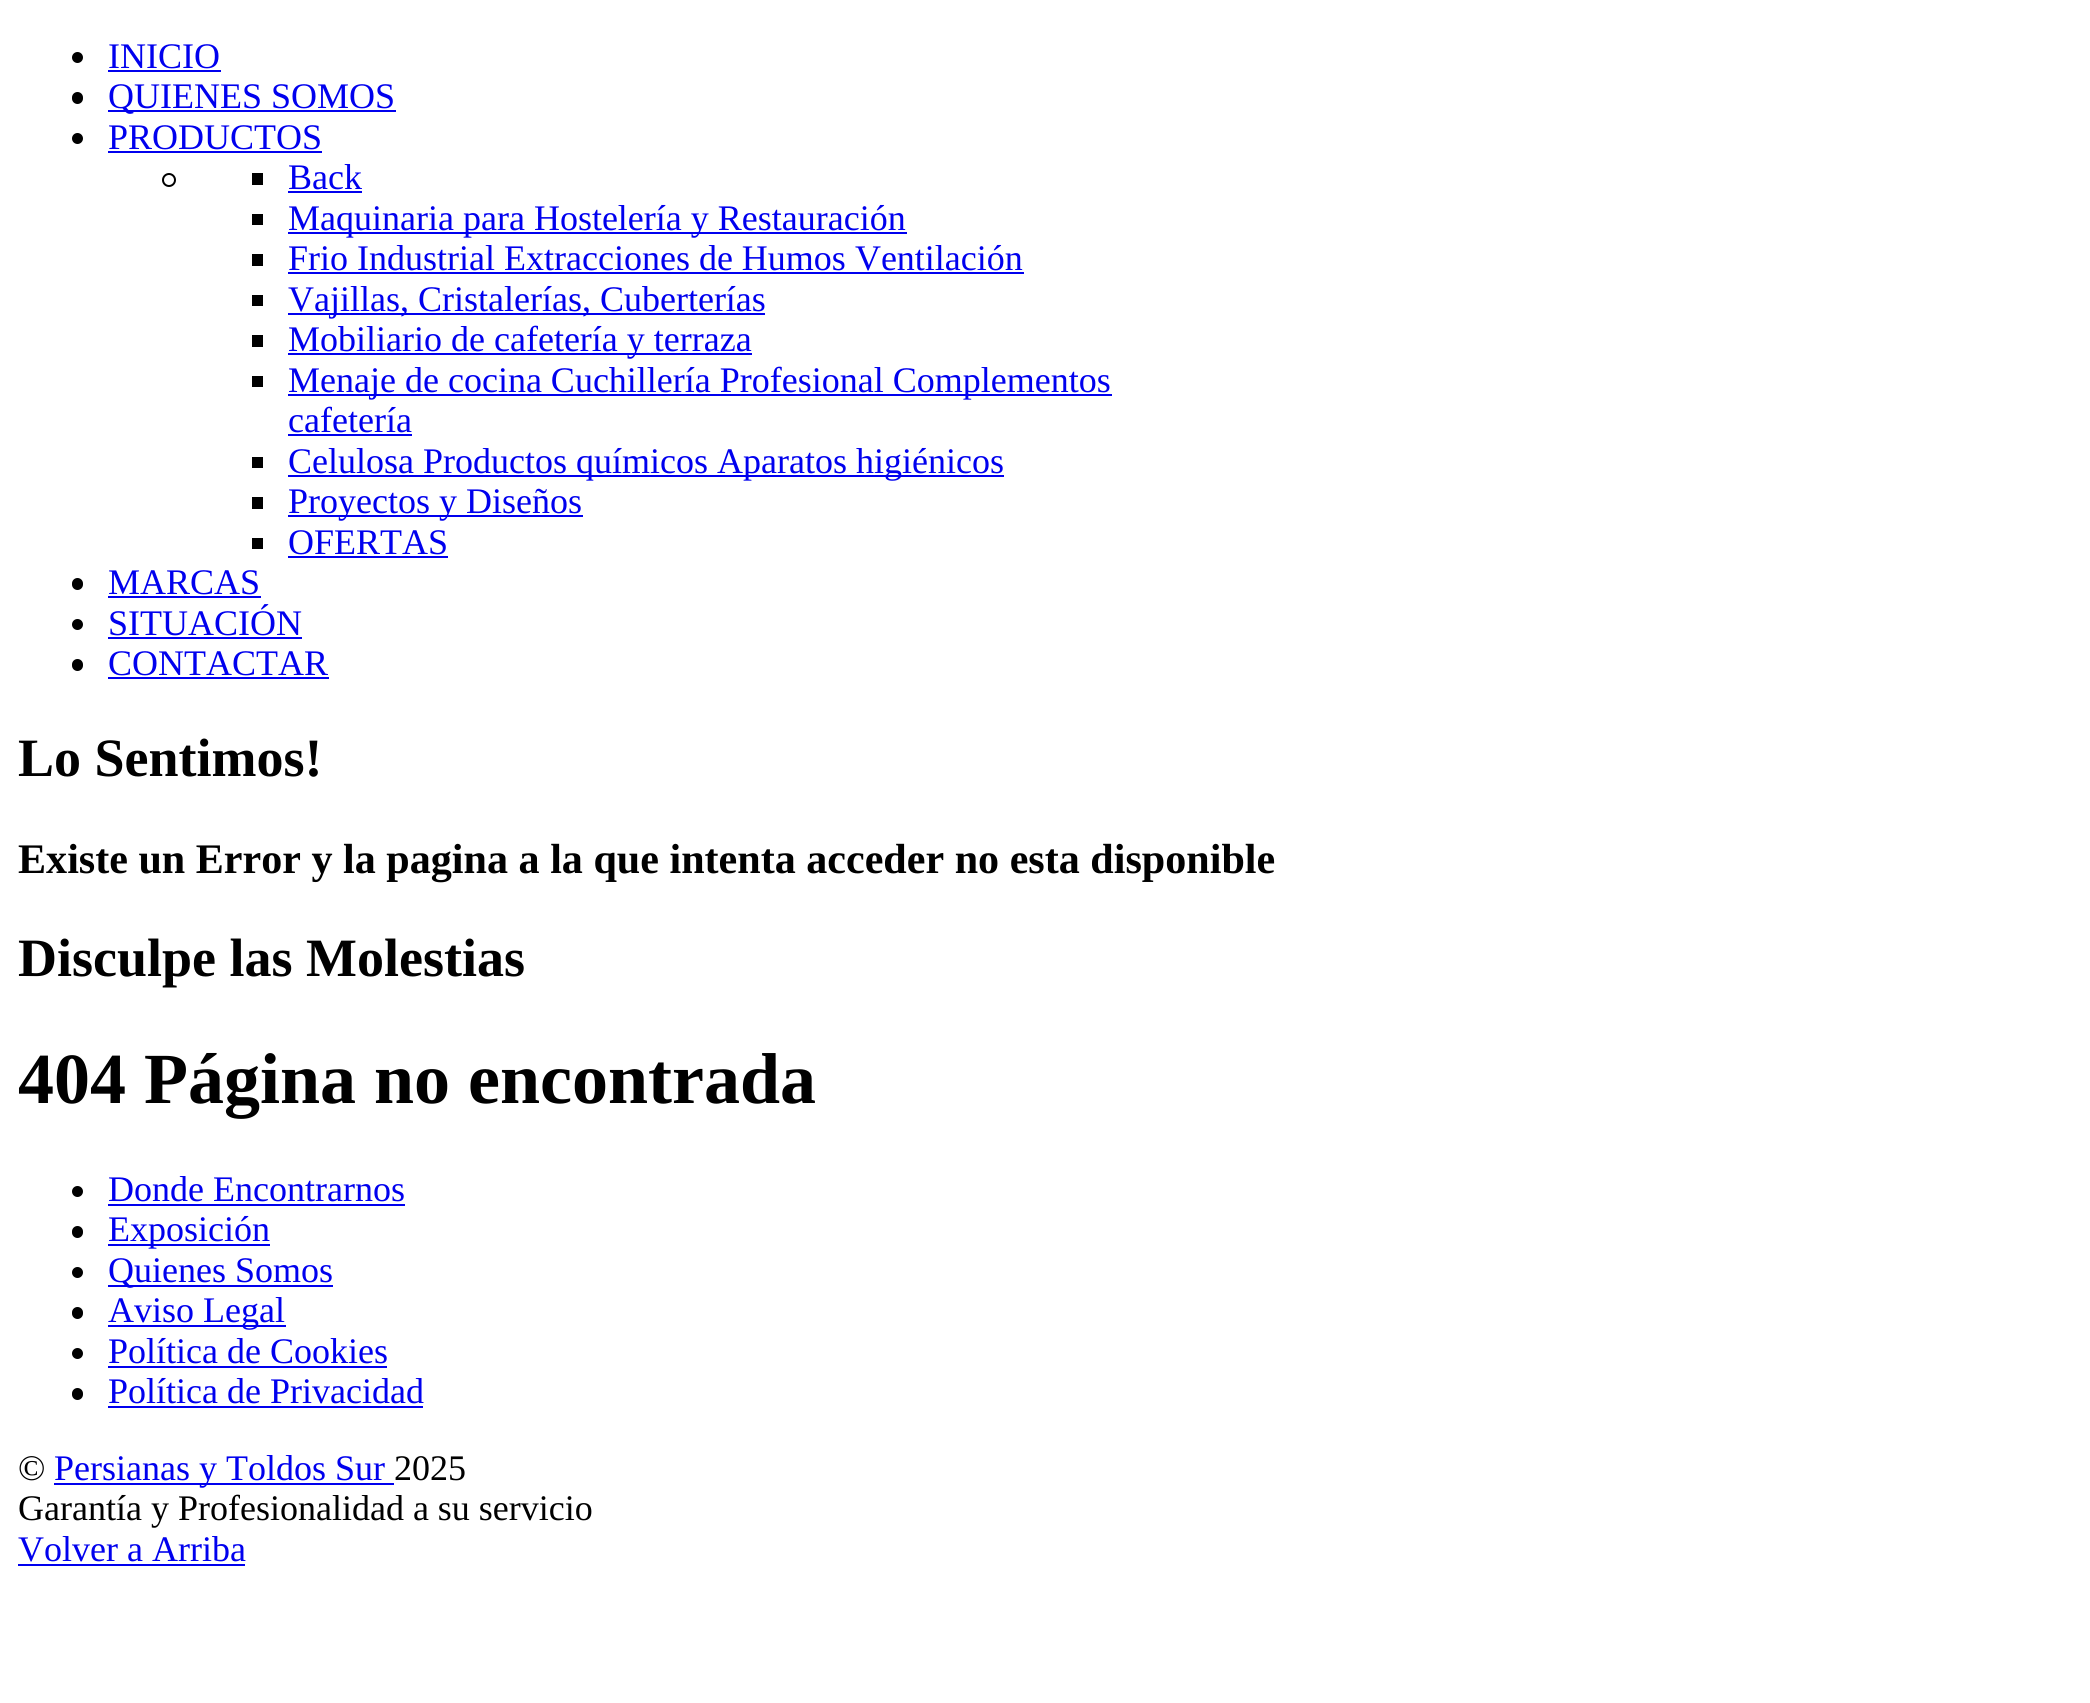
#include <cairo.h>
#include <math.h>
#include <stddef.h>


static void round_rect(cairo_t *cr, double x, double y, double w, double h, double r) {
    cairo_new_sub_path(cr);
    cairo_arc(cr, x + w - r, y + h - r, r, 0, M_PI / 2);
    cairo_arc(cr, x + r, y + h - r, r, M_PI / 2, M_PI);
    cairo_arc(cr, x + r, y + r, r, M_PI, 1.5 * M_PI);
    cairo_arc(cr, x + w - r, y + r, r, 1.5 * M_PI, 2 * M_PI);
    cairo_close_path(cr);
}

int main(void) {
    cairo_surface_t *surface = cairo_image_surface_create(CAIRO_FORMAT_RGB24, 2090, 1703);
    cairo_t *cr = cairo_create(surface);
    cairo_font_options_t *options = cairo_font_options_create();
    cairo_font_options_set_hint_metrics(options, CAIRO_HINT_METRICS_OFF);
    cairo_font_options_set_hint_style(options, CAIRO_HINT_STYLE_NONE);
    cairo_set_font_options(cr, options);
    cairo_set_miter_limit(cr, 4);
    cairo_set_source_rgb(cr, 1, 1, 1);
    cairo_paint(cr);
    cairo_set_source_rgb(cr, 0, 0, 0);
    cairo_arc(cr, 77.5, 57.5, 5.5, 0, 2 * M_PI);
    cairo_fill(cr);
    cairo_select_font_face(cr, "Liberation Serif", CAIRO_FONT_SLANT_NORMAL, CAIRO_FONT_WEIGHT_NORMAL);
    cairo_set_font_size(cr, 36);
    cairo_set_source_rgb(cr, 0, 0, 0.933);
    cairo_move_to(cr, 108, 68);
    cairo_show_text(cr, "INICIO");
    cairo_rectangle(cr, 108, 70, 113, 2);
    cairo_fill(cr);
    cairo_set_source_rgb(cr, 0, 0, 0);
    round_rect(cr, 72, 92, 11, 12, 5.5);
    cairo_fill(cr);
    cairo_set_source_rgb(cr, 0, 0, 0.933);
    cairo_rectangle(cr, 108, 110, 288, 2);
    cairo_fill(cr);
    cairo_move_to(cr, 108, 108);
    cairo_show_text(cr, "QUIENES SOMOS");
    cairo_set_source_rgb(cr, 0, 0, 0);
    cairo_new_path(cr);
    cairo_arc(cr, 77.5, 138.5, 5.5, 0, 2 * M_PI);
    cairo_fill(cr);
    cairo_set_source_rgb(cr, 0, 0, 0.933);
    cairo_move_to(cr, 108, 149);
    cairo_show_text(cr, "PRODUCTOS");
    cairo_rectangle(cr, 108, 151, 214, 2);
    cairo_fill(cr);
    cairo_arc(cr, 169, 180, 6, 0, 2 * M_PI);
    cairo_set_source_rgb(cr, 0, 0, 0);
    cairo_stroke(cr);
    cairo_rectangle(cr, 252, 173, 11, 12);
    cairo_fill(cr);
    cairo_set_source_rgb(cr, 0, 0, 0.933);
    cairo_move_to(cr, 288, 189);
    cairo_show_text(cr, "Back");
    cairo_rectangle(cr, 288, 191, 74, 2);
    cairo_fill(cr);
    cairo_set_source_rgb(cr, 0, 0, 0);
    cairo_rectangle(cr, 252, 214, 11, 11);
    cairo_fill(cr);
    cairo_set_source_rgb(cr, 0, 0, 0.933);
    cairo_rectangle(cr, 288, 232, 619, 2);
    cairo_fill(cr);
    cairo_move_to(cr, 288, 230);
    cairo_show_text(cr, "Maquinaria para Hostelería y Restauración");
    cairo_set_source_rgb(cr, 0, 0, 0);
    cairo_rectangle(cr, 252, 254, 11, 12);
    cairo_fill(cr);
    cairo_set_source_rgb(cr, 0, 0, 0.933);
    cairo_move_to(cr, 288, 270);
    cairo_show_text(cr, "Frio Industrial Extracciones de Humos Ventilación");
    cairo_rectangle(cr, 288, 272, 736, 2);
    cairo_fill(cr);
    cairo_set_source_rgb(cr, 0, 0, 0);
    cairo_rectangle(cr, 252, 295, 11, 11);
    cairo_fill(cr);
    cairo_set_source_rgb(cr, 0, 0, 0.933);
    cairo_rectangle(cr, 288, 313, 477, 2);
    cairo_fill(cr);
    cairo_move_to(cr, 288, 311);
    cairo_show_text(cr, "Vajillas, Cristalerías, Cuberterías");
    cairo_set_source_rgb(cr, 0, 0, 0);
    cairo_rectangle(cr, 252, 335, 11, 12);
    cairo_fill(cr);
    cairo_set_source_rgb(cr, 0, 0, 0.933);
    cairo_rectangle(cr, 288, 353, 464, 2);
    cairo_fill(cr);
    cairo_move_to(cr, 288, 351);
    cairo_show_text(cr, "Mobiliario de cafetería y terraza");
    cairo_set_source_rgb(cr, 0, 0, 0);
    cairo_rectangle(cr, 252, 376, 11, 11);
    cairo_fill(cr);
    cairo_set_source_rgb(cr, 0, 0, 0.933);
    cairo_rectangle(cr, 288, 394, 824, 2);
    cairo_fill(cr);
    cairo_move_to(cr, 288, 392);
    cairo_show_text(cr, "Menaje de cocina Cuchillería Profesional Complementos");
    cairo_move_to(cr, 288, 432);
    cairo_show_text(cr, "cafetería");
    cairo_rectangle(cr, 288, 434, 124, 2);
    cairo_fill(cr);
    cairo_set_source_rgb(cr, 0, 0, 0);
    cairo_rectangle(cr, 252, 457, 11, 11);
    cairo_fill(cr);
    cairo_set_source_rgb(cr, 0, 0, 0.933);
    cairo_rectangle(cr, 288, 475, 716, 2);
    cairo_fill(cr);
    cairo_move_to(cr, 288, 473);
    cairo_show_text(cr, "Celulosa Productos químicos Aparatos higiénicos");
    cairo_set_source_rgb(cr, 0, 0, 0);
    cairo_rectangle(cr, 252, 497, 11, 12);
    cairo_fill(cr);
    cairo_set_source_rgb(cr, 0, 0, 0.933);
    cairo_rectangle(cr, 288, 515, 295, 2);
    cairo_fill(cr);
    cairo_move_to(cr, 288, 513);
    cairo_show_text(cr, "Proyectos y Diseños");
    cairo_set_source_rgb(cr, 0, 0, 0);
    cairo_rectangle(cr, 252, 538, 11, 11);
    cairo_fill(cr);
    cairo_set_source_rgb(cr, 0, 0, 0.933);
    cairo_move_to(cr, 288, 554);
    cairo_show_text(cr, "OFERTAS");
    cairo_rectangle(cr, 288, 556, 160, 2);
    cairo_fill(cr);
    cairo_set_source_rgb(cr, 0, 0, 0);
    round_rect(cr, 72, 578, 11, 12, 5.5);
    cairo_fill(cr);
    cairo_set_source_rgb(cr, 0, 0, 0.933);
    cairo_move_to(cr, 108, 594);
    cairo_show_text(cr, "MARCAS");
    cairo_rectangle(cr, 108, 596, 153, 2);
    cairo_fill(cr);
    cairo_set_source_rgb(cr, 0, 0, 0);
    cairo_arc(cr, 77.5, 624.5, 5.5, 0, 2 * M_PI);
    cairo_fill(cr);
    cairo_set_source_rgb(cr, 0, 0, 0.933);
    cairo_move_to(cr, 108, 635);
    cairo_show_text(cr, "SITUACIÓN");
    cairo_rectangle(cr, 108, 637, 194, 2);
    cairo_fill(cr);
    cairo_set_source_rgb(cr, 0, 0, 0);
    round_rect(cr, 72, 659, 11, 12, 5.5);
    cairo_fill(cr);
    cairo_set_source_rgb(cr, 0, 0, 0.933);
    cairo_move_to(cr, 108, 675);
    cairo_show_text(cr, "CONTACTAR");
    cairo_rectangle(cr, 108, 677, 221, 2);
    cairo_fill(cr);
    cairo_select_font_face(cr, "Liberation Serif", CAIRO_FONT_SLANT_NORMAL, CAIRO_FONT_WEIGHT_BOLD);
    cairo_set_font_size(cr, 54);
    cairo_set_source_rgb(cr, 0, 0, 0);
    cairo_move_to(cr, 18, 776);
    cairo_show_text(cr, "Lo Sentimos!");
    cairo_set_font_size(cr, 42.1);
    cairo_move_to(cr, 18, 873);
    cairo_show_text(cr, "Existe un Error y la pagina a la que intenta acceder no esta disponible");
    cairo_set_font_size(cr, 54);
    cairo_move_to(cr, 18, 976);
    cairo_show_text(cr, "Disculpe las Molestias");
    cairo_set_font_size(cr, 72);
    cairo_move_to(cr, 18, 1103);
    cairo_show_text(cr, "404 Página no encontrada");
    cairo_new_path(cr);
    cairo_arc(cr, 77.5, 1191.5, 5.5, 0, 2 * M_PI);
    cairo_fill(cr);
    cairo_select_font_face(cr, "Liberation Serif", CAIRO_FONT_SLANT_NORMAL, CAIRO_FONT_WEIGHT_NORMAL);
    cairo_set_font_size(cr, 36);
    cairo_set_source_rgb(cr, 0, 0, 0.933);
    cairo_move_to(cr, 108, 1201);
    cairo_show_text(cr, "Donde Encontrarnos");
    cairo_rectangle(cr, 108, 1204, 297, 2);
    cairo_fill(cr);
    cairo_set_source_rgb(cr, 0, 0, 0);
    round_rect(cr, 72, 1226, 11, 12, 5.5);
    cairo_fill(cr);
    cairo_set_source_rgb(cr, 0, 0, 0.933);
    cairo_rectangle(cr, 108, 1244, 162, 2);
    cairo_fill(cr);
    cairo_move_to(cr, 108, 1241);
    cairo_show_text(cr, "Exposición");
    cairo_set_source_rgb(cr, 0, 0, 0);
    cairo_new_path(cr);
    cairo_arc(cr, 77.5, 1272.5, 5.5, 0, 2 * M_PI);
    cairo_fill(cr);
    cairo_set_source_rgb(cr, 0, 0, 0.933);
    cairo_rectangle(cr, 108, 1285, 225, 2);
    cairo_fill(cr);
    cairo_move_to(cr, 108, 1282);
    cairo_show_text(cr, "Quienes Somos");
    cairo_set_source_rgb(cr, 0, 0, 0);
    round_rect(cr, 72, 1307, 11, 12, 5.5);
    cairo_fill(cr);
    cairo_set_source_rgb(cr, 0, 0, 0.933);
    cairo_rectangle(cr, 108, 1325, 178, 2);
    cairo_fill(cr);
    cairo_move_to(cr, 108, 1322);
    cairo_show_text(cr, "Aviso Legal");
    cairo_set_source_rgb(cr, 0, 0, 0);
    cairo_new_path(cr);
    cairo_arc(cr, 77.5, 1353.5, 5.5, 0, 2 * M_PI);
    cairo_fill(cr);
    cairo_set_source_rgb(cr, 0, 0, 0.933);
    cairo_move_to(cr, 108, 1363);
    cairo_show_text(cr, "Política de Cookies");
    cairo_rectangle(cr, 108, 1366, 279, 2);
    cairo_fill(cr);
    cairo_set_source_rgb(cr, 0, 0, 0);
    round_rect(cr, 72, 1388, 11, 12, 5.5);
    cairo_fill(cr);
    cairo_set_source_rgb(cr, 0, 0, 0.933);
    cairo_move_to(cr, 108, 1403);
    cairo_show_text(cr, "Política de Privacidad");
    cairo_rectangle(cr, 108, 1406, 315, 2);
    cairo_fill(cr);
    cairo_set_source_rgb(cr, 0, 0, 0);
    cairo_move_to(cr, 18, 1480);
    cairo_show_text(cr, "©");
    cairo_set_source_rgb(cr, 0, 0, 0.933);
    cairo_rectangle(cr, 54, 1483, 340, 2);
    cairo_fill(cr);
    cairo_move_to(cr, 54, 1480);
    cairo_show_text(cr, "Persianas y Toldos Sur");
    cairo_set_source_rgb(cr, 0, 0, 0);
    cairo_move_to(cr, 394, 1480);
    cairo_show_text(cr, "2025");
    cairo_move_to(cr, 18, 1520);
    cairo_show_text(cr, "Garantía y Profesionalidad a su servicio");
    cairo_set_source_rgb(cr, 0, 0, 0.933);
    cairo_move_to(cr, 18, 1561);
    cairo_show_text(cr, "Volver a Arriba");
    cairo_rectangle(cr, 18, 1564, 227, 2);
    cairo_fill(cr);
    cairo_surface_write_to_png(surface, "page.png");
    cairo_font_options_destroy(options);
    cairo_destroy(cr);
    cairo_surface_destroy(surface);
    return 0;
}
